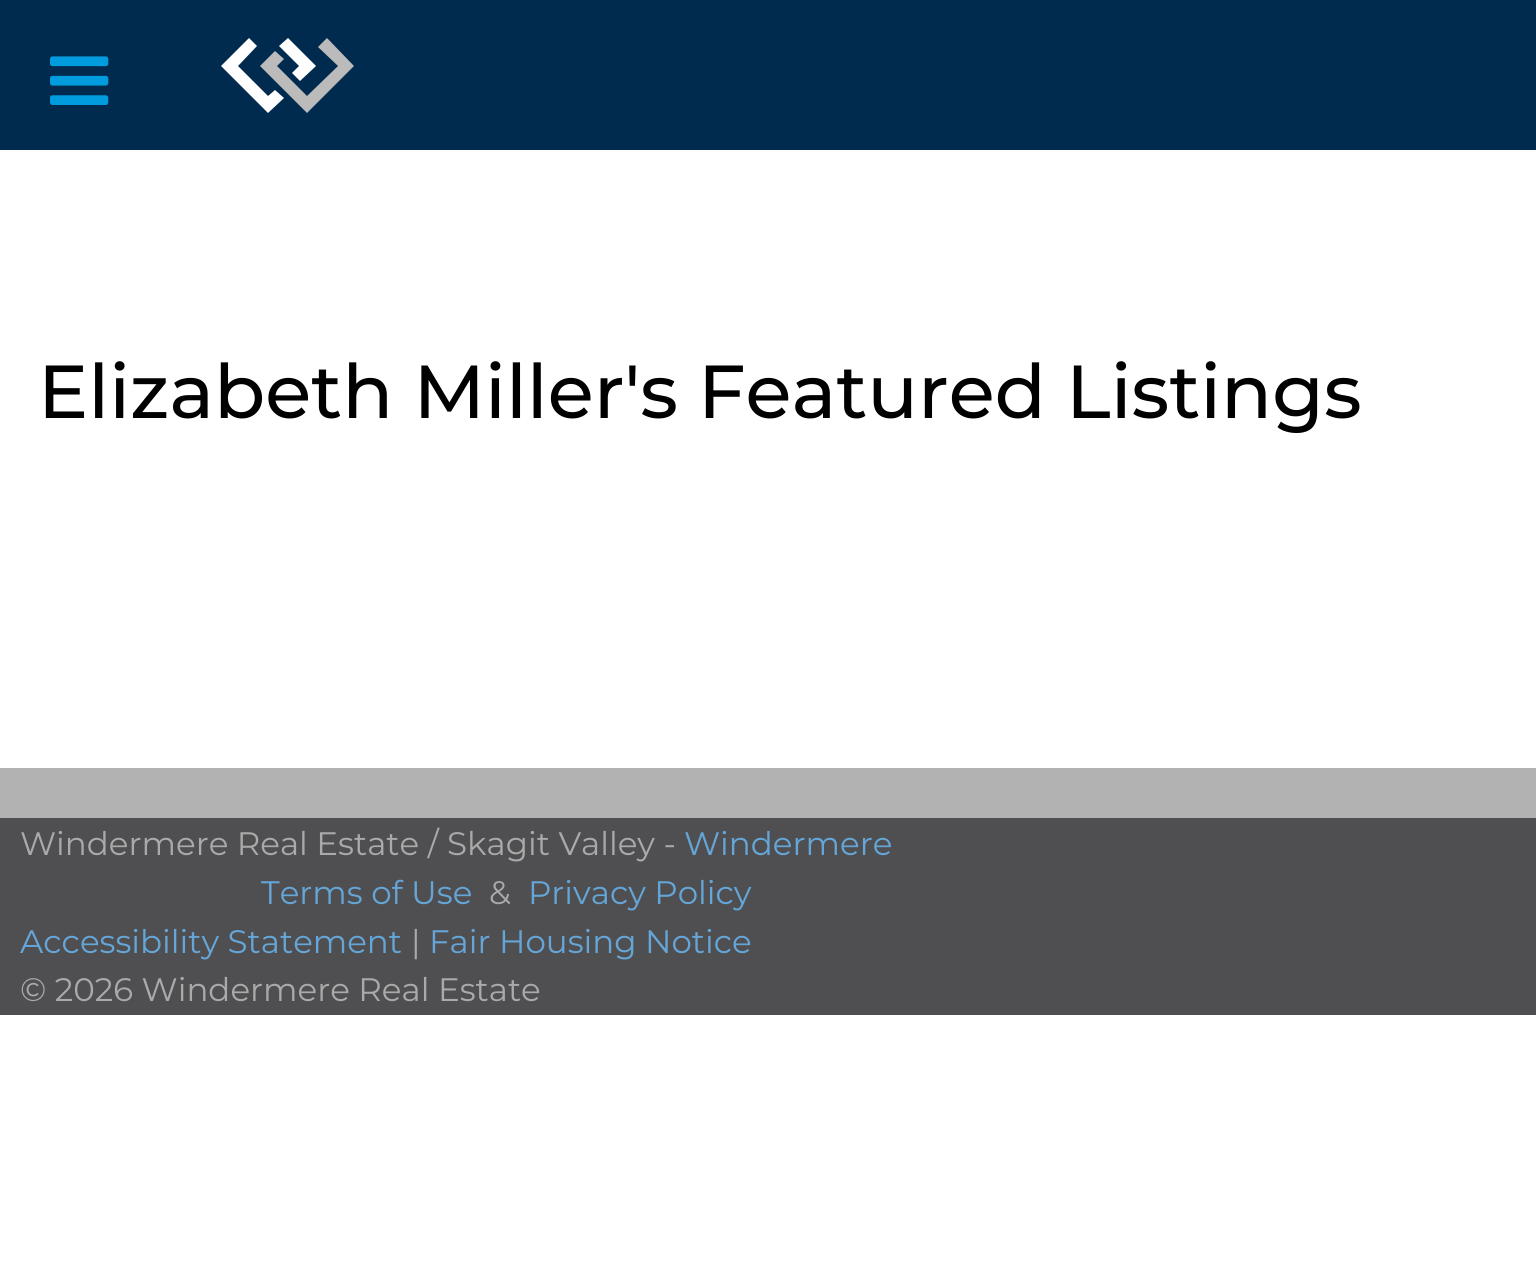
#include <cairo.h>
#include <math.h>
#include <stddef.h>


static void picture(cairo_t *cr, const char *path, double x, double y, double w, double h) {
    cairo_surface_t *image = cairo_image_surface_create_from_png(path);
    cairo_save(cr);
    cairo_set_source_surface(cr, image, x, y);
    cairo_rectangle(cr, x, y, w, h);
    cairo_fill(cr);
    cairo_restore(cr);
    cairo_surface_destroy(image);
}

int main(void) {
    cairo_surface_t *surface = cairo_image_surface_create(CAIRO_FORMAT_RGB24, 1536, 1261);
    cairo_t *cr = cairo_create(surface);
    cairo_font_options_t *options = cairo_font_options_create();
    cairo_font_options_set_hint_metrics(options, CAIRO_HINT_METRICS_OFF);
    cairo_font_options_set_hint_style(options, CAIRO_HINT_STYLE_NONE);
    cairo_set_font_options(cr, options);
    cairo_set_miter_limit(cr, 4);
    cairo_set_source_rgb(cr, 1, 1, 1);
    cairo_paint(cr);
    cairo_set_source_rgb(cr, 0, 0.165, 0.306);
    cairo_rectangle(cr, 0, 0, 1536, 150);
    cairo_fill(cr);
    picture(cr, "img1.png", 50, 56, 59, 49);
    cairo_set_source_rgb(cr, 0.733, 0.733, 0.733);
    cairo_new_path(cr);
    cairo_move_to(cr, 354, 66);
    cairo_line_to(cr, 307, 113);
    cairo_line_to(cr, 260, 66);
    cairo_line_to(cr, 275, 51);
    cairo_line_to(cr, 284, 59);
    cairo_line_to(cr, 277, 66);
    cairo_line_to(cr, 307, 96);
    cairo_line_to(cr, 338, 66);
    cairo_line_to(cr, 318, 47);
    cairo_line_to(cr, 327, 38);
    cairo_close_path(cr);
    cairo_fill(cr);
    cairo_set_source_rgb(cr, 1, 1, 1);
    cairo_new_path(cr);
    cairo_move_to(cr, 288, 38);
    cairo_line_to(cr, 279, 46);
    cairo_line_to(cr, 299, 66);
    cairo_line_to(cr, 292, 73);
    cairo_line_to(cr, 300, 81);
    cairo_line_to(cr, 316, 66);
    cairo_close_path(cr);
    cairo_move_to(cr, 275, 90);
    cairo_line_to(cr, 284, 98);
    cairo_line_to(cr, 268, 113);
    cairo_line_to(cr, 221, 66);
    cairo_line_to(cr, 249, 38);
    cairo_line_to(cr, 257, 46);
    cairo_line_to(cr, 238, 66);
    cairo_line_to(cr, 268, 96);
    cairo_close_path(cr);
    cairo_fill(cr);
    cairo_select_font_face(cr, "Montserrat Medium", CAIRO_FONT_SLANT_NORMAL, CAIRO_FONT_WEIGHT_NORMAL);
    cairo_set_font_size(cr, 75);
    cairo_set_source_rgb(cr, 0, 0, 0);
    cairo_move_to(cr, 38, 418);
    cairo_show_text(cr, "Elizabeth Miller's Featured Listings");
    cairo_set_source_rgb(cr, 0.702, 0.698, 0.702);
    cairo_rectangle(cr, 0, 768, 1536, 50);
    cairo_fill(cr);
    cairo_set_source_rgb(cr, 0.31, 0.31, 0.318);
    cairo_rectangle(cr, 0, 818, 1536, 197);
    cairo_fill(cr);
    cairo_select_font_face(cr, "Montserrat", CAIRO_FONT_SLANT_NORMAL, CAIRO_FONT_WEIGHT_NORMAL);
    cairo_set_font_size(cr, 32.5);
    cairo_set_source_rgb(cr, 0.667, 0.667, 0.667);
    cairo_move_to(cr, 20, 855);
    cairo_show_text(cr, "Windermere Real Estate / Skagit Valley -");
    cairo_set_source_rgb(cr, 0.396, 0.651, 0.847);
    cairo_move_to(cr, 684, 855);
    cairo_show_text(cr, "Windermere");
    cairo_move_to(cr, 261, 904);
    cairo_show_text(cr, "Terms of Use");
    cairo_set_source_rgb(cr, 0.667, 0.667, 0.667);
    cairo_move_to(cr, 489, 904);
    cairo_show_text(cr, "&");
    cairo_set_source_rgb(cr, 0.396, 0.651, 0.847);
    cairo_move_to(cr, 528, 904);
    cairo_show_text(cr, "Privacy Policy");
    cairo_move_to(cr, 20, 953);
    cairo_show_text(cr, "Accessibility Statement");
    cairo_set_source_rgb(cr, 0.667, 0.667, 0.667);
    cairo_move_to(cr, 411, 953);
    cairo_show_text(cr, "|");
    cairo_set_source_rgb(cr, 0.396, 0.651, 0.847);
    cairo_move_to(cr, 429, 953);
    cairo_show_text(cr, "Fair Housing Notice");
    cairo_set_source_rgb(cr, 0.667, 0.667, 0.667);
    cairo_move_to(cr, 20, 1001);
    cairo_show_text(cr, "© 2026 Windermere Real Estate");
    cairo_surface_write_to_png(surface, "page.png");
    cairo_font_options_destroy(options);
    cairo_destroy(cr);
    cairo_surface_destroy(surface);
    return 0;
}
